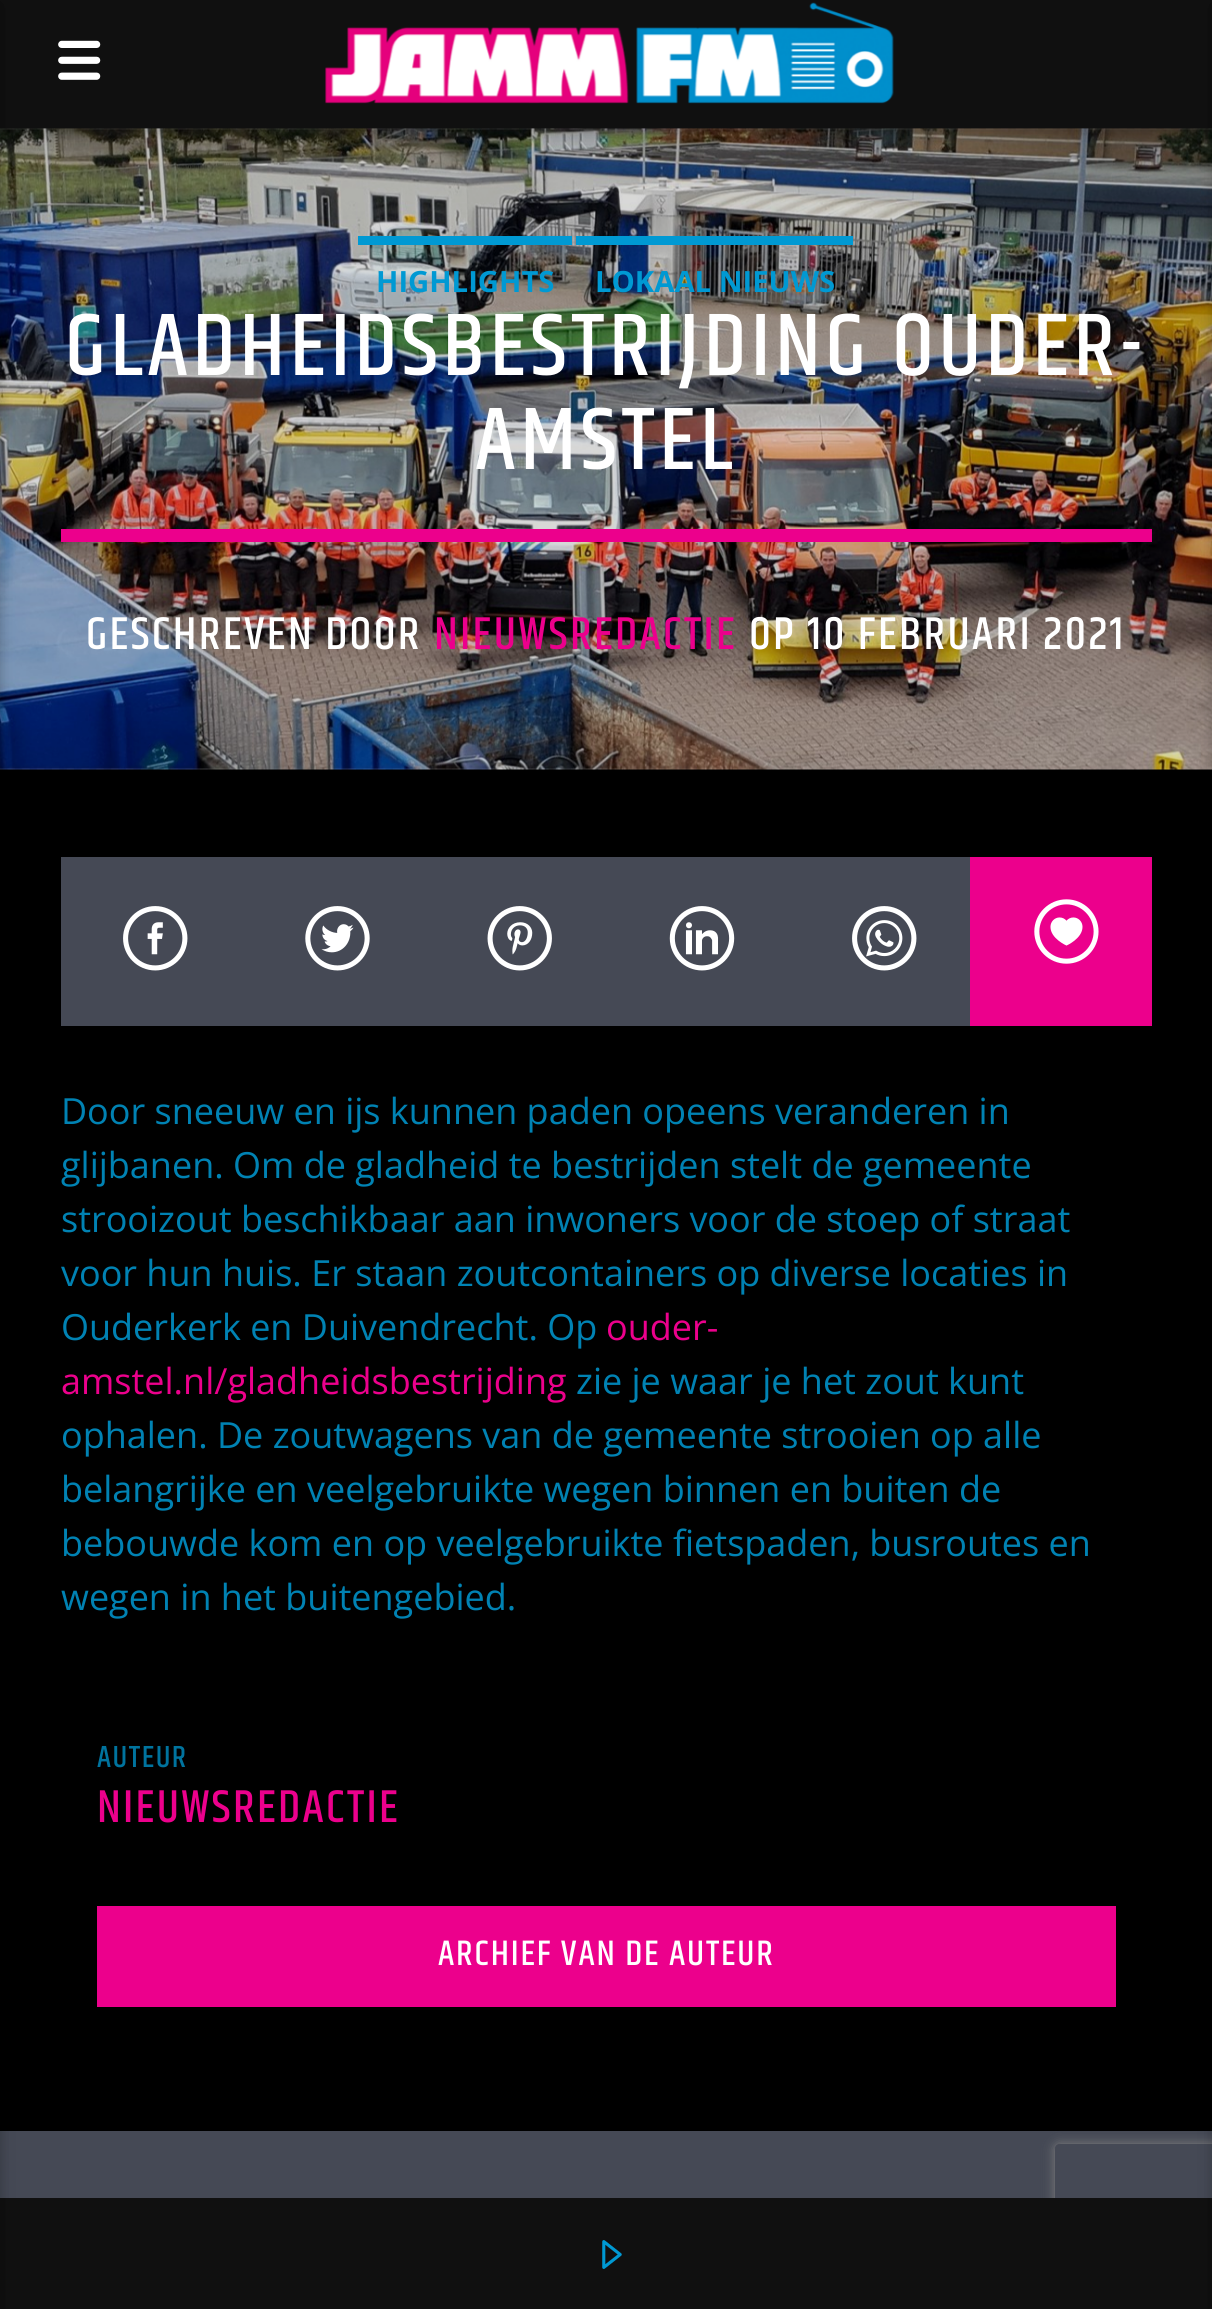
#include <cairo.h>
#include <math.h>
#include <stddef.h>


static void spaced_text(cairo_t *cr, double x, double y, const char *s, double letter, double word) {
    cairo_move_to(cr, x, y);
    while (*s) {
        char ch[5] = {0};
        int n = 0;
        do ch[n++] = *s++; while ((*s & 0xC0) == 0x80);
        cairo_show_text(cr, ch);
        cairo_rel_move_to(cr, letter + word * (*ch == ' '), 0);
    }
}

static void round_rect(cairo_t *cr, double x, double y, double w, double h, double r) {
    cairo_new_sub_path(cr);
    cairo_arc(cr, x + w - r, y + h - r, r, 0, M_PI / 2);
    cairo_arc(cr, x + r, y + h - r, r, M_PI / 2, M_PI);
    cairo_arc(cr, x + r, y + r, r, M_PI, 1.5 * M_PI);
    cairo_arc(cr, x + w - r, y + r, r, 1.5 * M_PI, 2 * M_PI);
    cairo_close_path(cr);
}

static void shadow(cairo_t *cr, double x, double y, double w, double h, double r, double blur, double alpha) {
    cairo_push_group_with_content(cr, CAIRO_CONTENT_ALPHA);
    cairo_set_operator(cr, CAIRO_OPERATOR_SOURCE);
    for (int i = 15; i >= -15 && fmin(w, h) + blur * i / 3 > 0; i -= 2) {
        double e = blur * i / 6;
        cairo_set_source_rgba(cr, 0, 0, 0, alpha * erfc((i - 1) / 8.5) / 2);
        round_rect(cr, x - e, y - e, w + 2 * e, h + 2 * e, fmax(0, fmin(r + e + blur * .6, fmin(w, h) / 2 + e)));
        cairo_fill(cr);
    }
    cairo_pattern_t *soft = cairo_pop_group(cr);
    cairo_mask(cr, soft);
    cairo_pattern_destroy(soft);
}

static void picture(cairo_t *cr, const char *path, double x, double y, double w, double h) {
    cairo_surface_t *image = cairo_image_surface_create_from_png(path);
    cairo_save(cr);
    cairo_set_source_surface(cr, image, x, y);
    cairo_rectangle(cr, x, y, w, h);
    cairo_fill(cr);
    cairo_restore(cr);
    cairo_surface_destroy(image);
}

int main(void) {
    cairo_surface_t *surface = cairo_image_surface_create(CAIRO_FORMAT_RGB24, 1212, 2309);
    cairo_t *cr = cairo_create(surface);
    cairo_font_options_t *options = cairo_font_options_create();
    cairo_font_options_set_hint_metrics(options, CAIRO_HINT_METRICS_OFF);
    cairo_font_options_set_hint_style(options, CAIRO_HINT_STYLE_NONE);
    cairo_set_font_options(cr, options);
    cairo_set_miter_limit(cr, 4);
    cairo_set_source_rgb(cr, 0, 0, 0);
    cairo_paint(cr);
    picture(cr, "img3.png", 0, 128, 1212, 642);
    shadow(cr, 0, 5, 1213, 128, 0, 11, 0.12);
    shadow(cr, 0, 5, 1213, 128, 0, 5.5, 0.16);
    cairo_set_source_rgb(cr, 0.063, 0.063, 0.063);
    cairo_rectangle(cr, 0, 0, 1212, 128);
    cairo_fill(cr);
    picture(cr, "img1.png", 58, 40, 43, 40);
    picture(cr, "img2.png", 325, 2, 569, 102);
    cairo_set_source_rgb(cr, 0.271, 0.286, 0.333);
    cairo_rectangle(cr, 0, 2131, 1212, 67);
    cairo_fill(cr);
    cairo_save(cr);
    cairo_set_fill_rule(cr, CAIRO_FILL_RULE_EVEN_ODD);
    cairo_new_path(cr);
    cairo_move_to(cr, 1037, 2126);
    cairo_line_to(cr, 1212, 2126);
    cairo_line_to(cr, 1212, 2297);
    cairo_line_to(cr, 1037, 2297);
    cairo_close_path(cr);
    cairo_move_to(cr, 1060, 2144);
    cairo_line_to(cr, 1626, 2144);
    cairo_curve_to(cr, 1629, 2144, 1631, 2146, 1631, 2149);
    cairo_line_to(cr, 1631, 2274);
    cairo_curve_to(cr, 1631, 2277, 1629, 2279, 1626, 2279);
    cairo_line_to(cr, 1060, 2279);
    cairo_curve_to(cr, 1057, 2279, 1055, 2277, 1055, 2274);
    cairo_line_to(cr, 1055, 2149);
    cairo_curve_to(cr, 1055, 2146, 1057, 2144, 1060, 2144);
    cairo_close_path(cr);
    cairo_clip(cr);
    cairo_set_source_rgb(cr, 0.502, 0.502, 0.502);
    shadow(cr, 1055, 2144, 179, 135, 5, 5.5, 1);
    cairo_restore(cr);
    cairo_set_source_rgb(cr, 0.063, 0.063, 0.063);
    cairo_rectangle(cr, 0, 2198, 1212, 111);
    cairo_fill(cr);
    cairo_set_source_rgb(cr, 0, 0, 0);
    shadow(cr, -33, 5, 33, 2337, 0, 11, 0.12);
    shadow(cr, -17, 5, 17, 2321, 0, 5.5, 0.16);
    cairo_set_source_rgb(cr, 0, 0.6, 0.827);
    cairo_rectangle(cr, 358, 236, 214, 9);
    cairo_fill(cr);
    cairo_select_font_face(cr, "Open Sans", CAIRO_FONT_SLANT_NORMAL, CAIRO_FONT_WEIGHT_BOLD);
    cairo_set_font_size(cr, 29.25);
    cairo_move_to(cr, 376, 292);
    cairo_show_text(cr, "HIGHLIGHTS");
    cairo_rectangle(cr, 576, 236, 277, 9);
    cairo_fill(cr);
    cairo_move_to(cr, 595, 292);
    cairo_show_text(cr, "LOKAAL NIEUWS");
    cairo_set_source_rgb(cr, 0.925, 0, 0.549);
    cairo_rectangle(cr, 61, 529, 1091, 13);
    cairo_fill(cr);
    cairo_select_font_face(cr, "Khand Medium", CAIRO_FONT_SLANT_NORMAL, CAIRO_FONT_WEIGHT_NORMAL);
    cairo_set_font_size(cr, 90);
    cairo_set_source_rgb(cr, 1, 1, 1);
    spaced_text(cr, 65, 375, "GLADHEIDSBESTRIJDING OUDER-", 4.5, 0);
    spaced_text(cr, 475, 469, "AMSTEL", 4.5, 0);
    cairo_set_font_size(cr, 46.75);
    spaced_text(cr, 86, 649, "GESCHREVEN DOOR", 2.3, 0);
    cairo_set_source_rgb(cr, 0.925, 0, 0.549);
    spaced_text(cr, 434, 649, "NIEUWSREDACTIE", 2.3, 0);
    cairo_set_source_rgb(cr, 1, 1, 1);
    spaced_text(cr, 749, 649, "OP 10 FEBRUARI 2021", 2.3, 0);
    cairo_set_source_rgb(cr, 0.271, 0.286, 0.333);
    cairo_rectangle(cr, 61, 857, 909, 169);
    cairo_fill(cr);
    picture(cr, "img4.png", 123, 906, 65, 65);
    picture(cr, "img5.png", 305, 906, 65, 65);
    picture(cr, "img6.png", 487, 906, 65, 65);
    picture(cr, "img7.png", 669, 906, 66, 65);
    picture(cr, "img8.png", 852, 906, 65, 65);
    cairo_set_source_rgb(cr, 0.925, 0, 0.549);
    cairo_rectangle(cr, 970, 857, 182, 169);
    cairo_fill(cr);
    picture(cr, "img9.png", 1034, 899, 65, 65);
    cairo_select_font_face(cr, "Open Sans", CAIRO_FONT_SLANT_NORMAL, CAIRO_FONT_WEIGHT_NORMAL);
    cairo_set_font_size(cr, 36);
    cairo_set_source_rgb(cr, 0, 0.51, 0.702);
    cairo_move_to(cr, 61, 1124);
    cairo_show_text(cr, "Door sneeuw en ijs kunnen paden opeens veranderen in");
    cairo_move_to(cr, 61, 1178);
    cairo_show_text(cr, "glijbanen. Om de gladheid te bestrijden stelt de gemeente");
    cairo_move_to(cr, 61, 1232);
    cairo_show_text(cr, "strooizout beschikbaar aan inwoners voor de stoep of straat");
    cairo_move_to(cr, 61, 1286);
    cairo_show_text(cr, "voor hun huis. Er staan zoutcontainers op diverse locaties in");
    cairo_move_to(cr, 61, 1340);
    cairo_show_text(cr, "Ouderkerk en Duivendrecht. Op");
    cairo_set_source_rgb(cr, 0.925, 0, 0.549);
    cairo_move_to(cr, 606, 1340);
    cairo_show_text(cr, "ouder-");
    cairo_move_to(cr, 61, 1394);
    cairo_show_text(cr, "amstel.nl/gladheidsbestrijding");
    cairo_set_source_rgb(cr, 0, 0.51, 0.702);
    cairo_move_to(cr, 576, 1394);
    cairo_show_text(cr, "zie je waar je het zout kunt");
    cairo_move_to(cr, 61, 1448);
    cairo_show_text(cr, "ophalen. De zoutwagens van de gemeente strooien op alle");
    cairo_move_to(cr, 61, 1502);
    cairo_show_text(cr, "belangrijke en veelgebruikte wegen binnen en buiten de");
    cairo_move_to(cr, 61, 1556);
    cairo_show_text(cr, "bebouwde kom en op veelgebruikte fietspaden, busroutes en");
    cairo_move_to(cr, 61, 1610);
    cairo_show_text(cr, "wegen in het buitengebied.");
    cairo_select_font_face(cr, "Khand Medium", CAIRO_FONT_SLANT_NORMAL, CAIRO_FONT_WEIGHT_NORMAL);
    cairo_set_font_size(cr, 31);
    cairo_set_source_rgb(cr, 0, 0.451, 0.62);
    spaced_text(cr, 97, 1767, "AUTEUR", 1.5, 0);
    cairo_set_font_size(cr, 46.75);
    cairo_set_source_rgb(cr, 0.925, 0, 0.549);
    spaced_text(cr, 97, 1822, "NIEUWSREDACTIE", 2.3, 0);
    cairo_rectangle(cr, 97, 1906, 1019, 101);
    cairo_fill(cr);
    cairo_set_font_size(cr, 36);
    cairo_set_source_rgb(cr, 1, 1, 1);
    spaced_text(cr, 438, 1965, "ARCHIEF VAN DE AUTEUR", 1.8, 0);
    cairo_set_source_rgb(cr, 0, 0, 0);
    shadow(cr, 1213, 5, 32, 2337, 0, 11, 0.12);
    shadow(cr, 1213, 5, 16, 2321, 0, 5.5, 0.16);
    picture(cr, "img10.png", 602, 2240, 20, 29);
    cairo_surface_write_to_png(surface, "page.png");
    cairo_font_options_destroy(options);
    cairo_destroy(cr);
    cairo_surface_destroy(surface);
    return 0;
}
